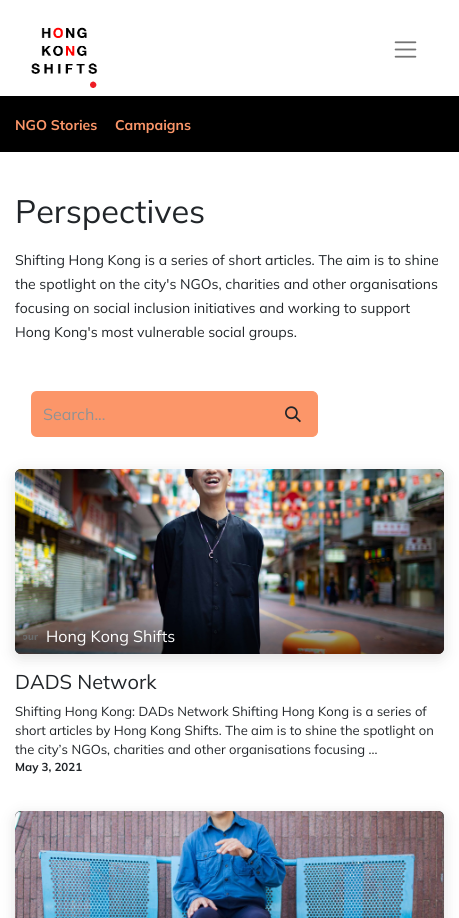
#include <cairo.h>
#include <math.h>
#include <stddef.h>


static void round_rect(cairo_t *cr, double x, double y, double w, double h, double r) {
    cairo_new_sub_path(cr);
    cairo_arc(cr, x + w - r, y + h - r, r, 0, M_PI / 2);
    cairo_arc(cr, x + r, y + h - r, r, M_PI / 2, M_PI);
    cairo_arc(cr, x + r, y + r, r, M_PI, 1.5 * M_PI);
    cairo_arc(cr, x + w - r, y + r, r, 1.5 * M_PI, 2 * M_PI);
    cairo_close_path(cr);
}

static void shadow(cairo_t *cr, double x, double y, double w, double h, double r, double blur, double alpha) {
    cairo_push_group_with_content(cr, CAIRO_CONTENT_ALPHA);
    cairo_set_operator(cr, CAIRO_OPERATOR_SOURCE);
    for (int i = 15; i >= -15 && fmin(w, h) + blur * i / 3 > 0; i -= 2) {
        double e = blur * i / 6;
        cairo_set_source_rgba(cr, 0, 0, 0, alpha * erfc((i - 1) / 8.5) / 2);
        round_rect(cr, x - e, y - e, w + 2 * e, h + 2 * e, fmax(0, fmin(r + e + blur * .6, fmin(w, h) / 2 + e)));
        cairo_fill(cr);
    }
    cairo_pattern_t *soft = cairo_pop_group(cr);
    cairo_mask(cr, soft);
    cairo_pattern_destroy(soft);
}

static void picture(cairo_t *cr, const char *path, double x, double y, double w, double h) {
    cairo_surface_t *image = cairo_image_surface_create_from_png(path);
    cairo_save(cr);
    cairo_set_source_surface(cr, image, x, y);
    cairo_rectangle(cr, x, y, w, h);
    cairo_fill(cr);
    cairo_restore(cr);
    cairo_surface_destroy(image);
}

int main(void) {
    cairo_surface_t *surface = cairo_image_surface_create(CAIRO_FORMAT_RGB24, 459, 918);
    cairo_t *cr = cairo_create(surface);
    cairo_font_options_t *options = cairo_font_options_create();
    cairo_font_options_set_hint_metrics(options, CAIRO_HINT_METRICS_OFF);
    cairo_font_options_set_hint_style(options, CAIRO_HINT_STYLE_NONE);
    cairo_set_font_options(cr, options);
    cairo_set_miter_limit(cr, 4);
    cairo_pattern_t *gradient;
    cairo_set_source_rgb(cr, 1, 1, 1);
    cairo_paint(cr);
    picture(cr, "img1.png", 31, 27, 67, 61);
    picture(cr, "img2.png", 394, 41, 23, 17);
    cairo_set_source_rgb(cr, 0, 0, 0);
    cairo_rectangle(cr, 0, 96, 459, 56);
    cairo_fill(cr);
    cairo_select_font_face(cr, "Mulish", CAIRO_FONT_SLANT_NORMAL, CAIRO_FONT_WEIGHT_BOLD);
    cairo_set_font_size(cr, 14);
    cairo_set_source_rgb(cr, 0.988, 0.588, 0.412);
    cairo_move_to(cr, 15, 130);
    cairo_show_text(cr, "NGO Stories");
    cairo_move_to(cr, 115, 130);
    cairo_show_text(cr, "Campaigns");
    cairo_select_font_face(cr, "Mulish", CAIRO_FONT_SLANT_NORMAL, CAIRO_FONT_WEIGHT_NORMAL);
    cairo_set_font_size(cr, 32.5);
    cairo_set_source_rgb(cr, 0.129, 0.145, 0.161);
    cairo_move_to(cr, 15, 223);
    cairo_show_text(cr, "Perspectives");
    cairo_set_font_size(cr, 14);
    cairo_move_to(cr, 15, 265);
    cairo_show_text(cr, "Shifting Hong Kong is a series of short articles. The aim is to shine");
    cairo_move_to(cr, 15, 289);
    cairo_show_text(cr, "the spotlight on the city's NGOs, charities and other organisations");
    cairo_move_to(cr, 15, 313);
    cairo_show_text(cr, "focusing on social inclusion initiatives and working to support");
    cairo_move_to(cr, 15, 337);
    cairo_show_text(cr, "Hong Kong's most vulnerable social groups.");
    cairo_set_source_rgb(cr, 0.988, 0.588, 0.412);
    cairo_new_path(cr);
    cairo_move_to(cr, 37, 391);
    cairo_line_to(cr, 269, 391);
    cairo_line_to(cr, 269, 437);
    cairo_line_to(cr, 37, 437);
    cairo_curve_to(cr, 33.5, 437, 31, 434.5, 31, 431);
    cairo_line_to(cr, 31, 397);
    cairo_curve_to(cr, 31, 393.5, 33.5, 391, 37, 391);
    cairo_close_path(cr);
    cairo_fill(cr);
    cairo_set_font_size(cr, 16);
    cairo_set_source_rgb(cr, 0.565, 0.573, 0.58);
    cairo_move_to(cr, 43, 420);
    cairo_show_text(cr, "Search...");
    cairo_set_source_rgb(cr, 0.988, 0.588, 0.412);
    cairo_new_path(cr);
    cairo_move_to(cr, 268.5, 391.5);
    cairo_line_to(cr, 312, 391.5);
    cairo_curve_to(cr, 315, 391.5, 317.5, 394, 317.5, 397);
    cairo_line_to(cr, 317.5, 431);
    cairo_curve_to(cr, 317.5, 434, 315, 436.5, 312, 436.5);
    cairo_line_to(cr, 268.5, 436.5);
    cairo_close_path(cr);
    cairo_fill_preserve(cr);
    cairo_set_line_width(cr, 1);
    cairo_stroke(cr);
    picture(cr, "img3.png", 285, 406, 16, 17);
    cairo_set_source_rgb(cr, 0, 0, 0);
    shadow(cr, 15, 473, 429, 185, 6, 8, 0.12);
    cairo_set_source_rgb(cr, 0.086, 0.094, 0.106);
    round_rect(cr, 15, 469, 429, 185, 6);
    cairo_fill(cr);
    picture(cr, "img4.png", 15, 469, 429, 185);
    gradient = cairo_pattern_create_linear(230, 610, 230, 654);
    cairo_pattern_add_color_stop_rgba(gradient, 0, 0, 0, 0, 0);
    cairo_pattern_add_color_stop_rgba(gradient, 0.19, 0, 0, 0, 0.13);
    cairo_pattern_add_color_stop_rgba(gradient, 0.34, 0, 0, 0, 0.23);
    cairo_pattern_add_color_stop_rgba(gradient, 0.47, 0, 0, 0, 0.31);
    cairo_pattern_add_color_stop_rgba(gradient, 0.56, 0, 0, 0, 0.36);
    cairo_pattern_add_color_stop_rgba(gradient, 0.65, 0, 0, 0, 0.4);
    cairo_pattern_add_color_stop_rgba(gradient, 0.73, 0, 0, 0, 0.43);
    cairo_pattern_add_color_stop_rgba(gradient, 0.8, 0, 0, 0, 0.46);
    cairo_pattern_add_color_stop_rgba(gradient, 0.86, 0, 0, 0, 0.48);
    cairo_pattern_add_color_stop_rgba(gradient, 0.91, 0, 0, 0, 0.49);
    cairo_pattern_add_color_stop_rgba(gradient, 0.95, 0, 0, 0, 0.49);
    cairo_pattern_add_color_stop_rgba(gradient, 0.98, 0, 0, 0, 0.5);
    cairo_pattern_add_color_stop_rgba(gradient, 1, 0, 0, 0, 0.5);
    cairo_set_source(cr, gradient);
    cairo_pattern_destroy(gradient);
    cairo_new_path(cr);
    cairo_move_to(cr, 15, 610);
    cairo_line_to(cr, 444, 610);
    cairo_line_to(cr, 444, 648);
    cairo_curve_to(cr, 444, 651.5, 441.5, 654, 438, 654);
    cairo_line_to(cr, 21, 654);
    cairo_curve_to(cr, 17.5, 654, 15, 651.5, 15, 648);
    cairo_close_path(cr);
    cairo_fill(cr);
    picture(cr, "img5.png", 23, 634, 15, 6);
    cairo_set_source_rgb(cr, 1, 1, 1);
    cairo_move_to(cr, 46, 642);
    cairo_show_text(cr, "Hong Kong Shifts");
    cairo_set_font_size(cr, 20);
    cairo_set_source_rgb(cr, 0.129, 0.145, 0.161);
    cairo_move_to(cr, 15, 689);
    cairo_show_text(cr, "DADS Network");
    cairo_set_font_size(cr, 13);
    cairo_move_to(cr, 15, 716);
    cairo_show_text(cr, "Shifting Hong Kong: DADs Network Shifting Hong Kong is a series of");
    cairo_move_to(cr, 15, 735);
    cairo_show_text(cr, "short articles by Hong Kong Shifts. The aim is to shine the spotlight on");
    cairo_move_to(cr, 15, 754);
    cairo_show_text(cr, "the city’s NGOs, charities and other organisations focusing ...");
    cairo_select_font_face(cr, "Mulish", CAIRO_FONT_SLANT_NORMAL, CAIRO_FONT_WEIGHT_BOLD);
    cairo_set_font_size(cr, 11.5);
    cairo_move_to(cr, 15, 771);
    cairo_show_text(cr, "May 3, 2021");
    cairo_set_source_rgb(cr, 0, 0, 0);
    shadow(cr, 15, 815, 429, 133, 6, 8, 0.12);
    cairo_set_source_rgb(cr, 0.086, 0.094, 0.106);
    cairo_new_path(cr);
    cairo_move_to(cr, 21, 811);
    cairo_line_to(cr, 438, 811);
    cairo_curve_to(cr, 441.5, 811, 444, 813.5, 444, 817);
    cairo_line_to(cr, 444, 918);
    cairo_line_to(cr, 15, 918);
    cairo_line_to(cr, 15, 817);
    cairo_curve_to(cr, 15, 813.5, 17.5, 811, 21, 811);
    cairo_close_path(cr);
    cairo_fill(cr);
    picture(cr, "img6.png", 15, 811, 429, 107);
    cairo_surface_write_to_png(surface, "page.png");
    cairo_font_options_destroy(options);
    cairo_destroy(cr);
    cairo_surface_destroy(surface);
    return 0;
}
